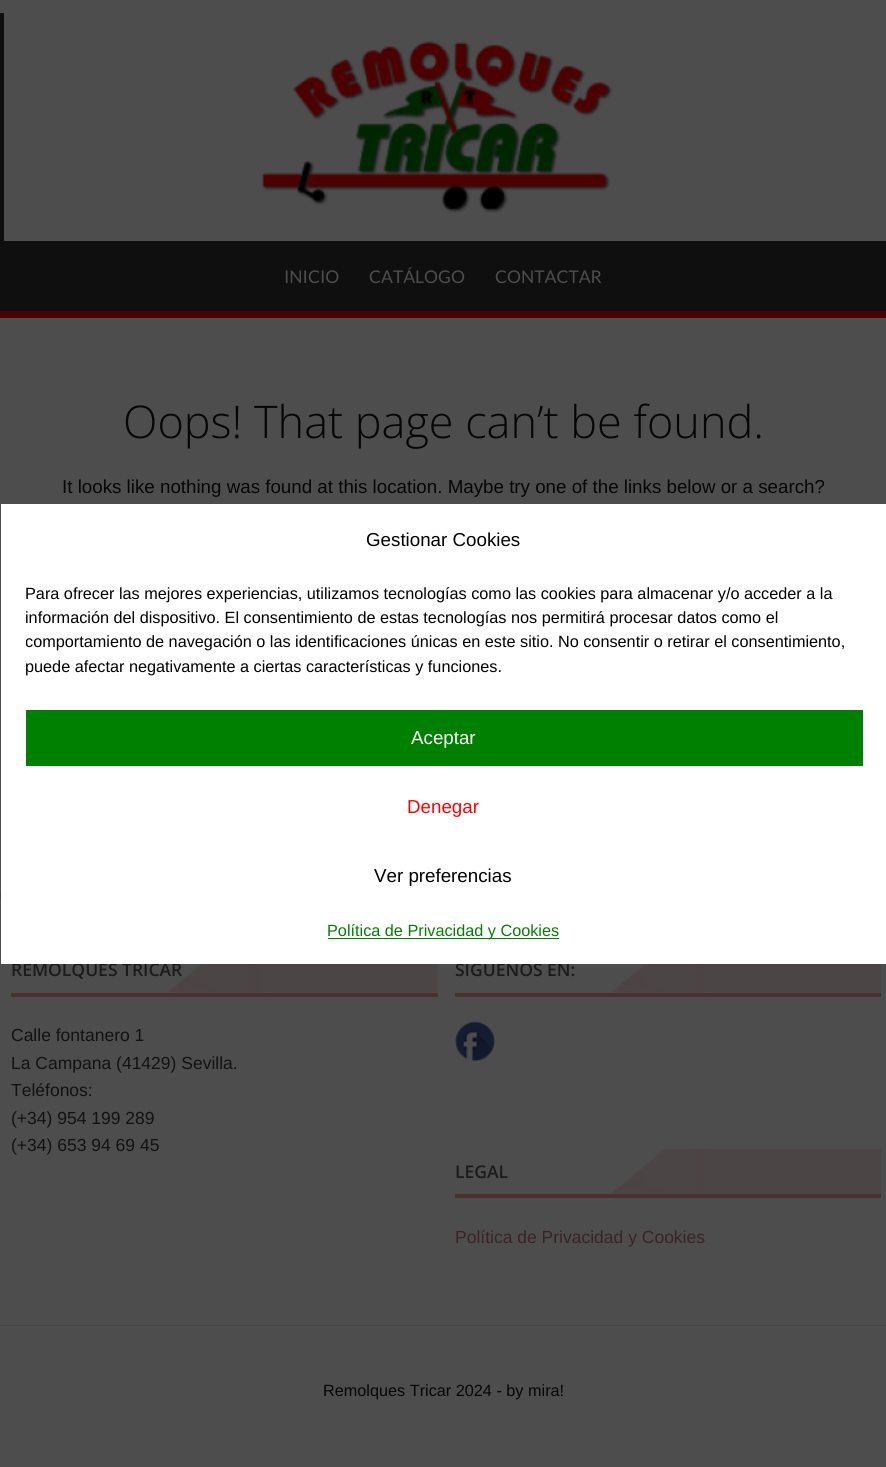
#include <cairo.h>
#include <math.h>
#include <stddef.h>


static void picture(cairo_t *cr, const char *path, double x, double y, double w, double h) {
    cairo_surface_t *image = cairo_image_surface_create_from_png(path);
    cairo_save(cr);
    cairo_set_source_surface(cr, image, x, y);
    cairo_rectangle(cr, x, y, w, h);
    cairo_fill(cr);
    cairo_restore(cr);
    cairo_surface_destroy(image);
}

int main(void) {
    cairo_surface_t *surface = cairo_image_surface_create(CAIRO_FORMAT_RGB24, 886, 1467);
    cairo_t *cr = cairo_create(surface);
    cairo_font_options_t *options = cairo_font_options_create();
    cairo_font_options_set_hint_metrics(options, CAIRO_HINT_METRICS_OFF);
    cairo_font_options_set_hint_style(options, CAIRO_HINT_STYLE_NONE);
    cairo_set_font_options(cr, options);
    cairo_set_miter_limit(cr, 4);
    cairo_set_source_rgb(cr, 0.302, 0.302, 0.302);
    cairo_paint(cr);
    cairo_set_source_rgb(cr, 0.302, 0, 0);
    cairo_rectangle(cr, 0, 311, 886, 7);
    cairo_fill(cr);
    picture(cr, "img1.png", 262, 41, 351, 172);
    cairo_set_source_rgb(cr, 0.059, 0.059, 0.059);
    cairo_rectangle(cr, 4, 241, 882, 70);
    cairo_fill(cr);
    cairo_rectangle(cr, 0, 13, 4, 298);
    cairo_fill(cr);
    cairo_select_font_face(cr, "Lato", CAIRO_FONT_SLANT_NORMAL, CAIRO_FONT_WEIGHT_NORMAL);
    cairo_set_font_size(cr, 17.5);
    cairo_set_source_rgb(cr, 0.302, 0.302, 0.302);
    cairo_move_to(cr, 284, 283);
    cairo_show_text(cr, "INICIO");
    cairo_move_to(cr, 369, 283);
    cairo_show_text(cr, "CATÁLOGO");
    cairo_move_to(cr, 495, 283);
    cairo_show_text(cr, "CONTACTAR");
    cairo_set_source_rgb(cr, 0.271, 0.271, 0.271);
    cairo_rectangle(cr, 0, 893, 1, 5);
    cairo_fill(cr);
    cairo_select_font_face(cr, "Open Sans Light", CAIRO_FONT_SLANT_NORMAL, CAIRO_FONT_WEIGHT_NORMAL);
    cairo_set_font_size(cr, 45);
    cairo_set_source_rgb(cr, 0.024, 0.024, 0.024);
    cairo_move_to(cr, 123, 438);
    cairo_show_text(cr, "Oops! That page can’t be found.");
    cairo_select_font_face(cr, "Liberation Sans", CAIRO_FONT_SLANT_NORMAL, CAIRO_FONT_WEIGHT_NORMAL);
    cairo_set_font_size(cr, 18.75);
    cairo_move_to(cr, 62, 493);
    cairo_show_text(cr, "It looks like nothing was found at this location. Maybe try one of the links below or a search?");
    picture(cr, "img2.png", 167, 964, 271, 29);
    cairo_set_source_rgb(cr, 0.302, 0.184, 0.184);
    cairo_rectangle(cr, 11, 993, 427, 4);
    cairo_fill(cr);
    cairo_select_font_face(cr, "Open Sans SemiBold", CAIRO_FONT_SLANT_NORMAL, CAIRO_FONT_WEIGHT_NORMAL);
    cairo_set_font_size(cr, 17.5);
    cairo_set_source_rgb(cr, 0.106, 0.106, 0.106);
    cairo_move_to(cr, 11, 976);
    cairo_show_text(cr, "REMOLQUES TRICAR");
    cairo_select_font_face(cr, "Liberation Sans", CAIRO_FONT_SLANT_NORMAL, CAIRO_FONT_WEIGHT_NORMAL);
    cairo_set_source_rgb(cr, 0.071, 0.071, 0.071);
    cairo_move_to(cr, 11, 1041);
    cairo_show_text(cr, "Calle fontanero 1");
    cairo_move_to(cr, 11, 1069);
    cairo_show_text(cr, "La Campana (41429) Sevilla.");
    cairo_move_to(cr, 11, 1096);
    cairo_show_text(cr, "Teléfonos:");
    cairo_move_to(cr, 11, 1124);
    cairo_show_text(cr, "(+34) 954 199 289");
    cairo_move_to(cr, 11, 1151);
    cairo_show_text(cr, "(+34) 653 94 69 45");
    picture(cr, "img3.png", 611, 964, 271, 29);
    cairo_set_source_rgb(cr, 0.302, 0.184, 0.184);
    cairo_rectangle(cr, 455, 993, 426, 4);
    cairo_fill(cr);
    cairo_select_font_face(cr, "Open Sans SemiBold", CAIRO_FONT_SLANT_NORMAL, CAIRO_FONT_WEIGHT_NORMAL);
    cairo_set_source_rgb(cr, 0.106, 0.106, 0.106);
    cairo_move_to(cr, 455, 976);
    cairo_show_text(cr, "SÍGUENOS EN:");
    picture(cr, "img4.png", 455, 1021, 40, 41);
    picture(cr, "img5.png", 611, 1148, 271, 46);
    cairo_set_source_rgb(cr, 0.302, 0.184, 0.184);
    cairo_rectangle(cr, 455, 1194, 426, 4);
    cairo_fill(cr);
    cairo_set_source_rgb(cr, 0.106, 0.106, 0.106);
    cairo_move_to(cr, 455, 1178);
    cairo_show_text(cr, "LEGAL");
    cairo_select_font_face(cr, "Liberation Sans", CAIRO_FONT_SLANT_NORMAL, CAIRO_FONT_WEIGHT_NORMAL);
    cairo_set_source_rgb(cr, 0.235, 0.133, 0.141);
    cairo_move_to(cr, 455, 1243);
    cairo_show_text(cr, "Política de Privacidad y Cookies");
    cairo_set_source_rgb(cr, 0.271, 0.271, 0.271);
    cairo_rectangle(cr, 0, 1325, 886, 1);
    cairo_fill(cr);
    cairo_set_font_size(cr, 16.25);
    cairo_set_source_rgb(cr, 0.024, 0.024, 0.024);
    cairo_move_to(cr, 323, 1396);
    cairo_show_text(cr, "Remolques Tricar 2024 - by mira!");
    cairo_set_source_rgb(cr, 1, 1, 1);
    cairo_rectangle(cr, 1, 504, 885, 460);
    cairo_fill(cr);
    cairo_set_font_size(cr, 18.75);
    cairo_set_source_rgb(cr, 0, 0, 0);
    cairo_move_to(cr, 366, 546);
    cairo_show_text(cr, "Gestionar Cookies");
    cairo_set_font_size(cr, 16.25);
    cairo_move_to(cr, 25, 599);
    cairo_show_text(cr, "Para ofrecer las mejores experiencias, utilizamos tecnologías como las cookies para almacenar y/o acceder a la");
    cairo_move_to(cr, 25, 623);
    cairo_show_text(cr, "información del dispositivo. El consentimiento de estas tecnologías nos permitirá procesar datos como el");
    cairo_save(cr);
    cairo_rectangle(cr, 26, 581, 837, 104);
    cairo_clip(cr);
    cairo_move_to(cr, 25, 647);
    cairo_show_text(cr, "comportamiento de navegación o las identificaciones únicas en este sitio. No consentir o retirar el consentimiento,");
    cairo_restore(cr);
    cairo_move_to(cr, 25, 672);
    cairo_show_text(cr, "puede afectar negativamente a ciertas características y funciones.");
    cairo_set_source_rgb(cr, 0, 0.502, 0);
    cairo_rectangle(cr, 26, 710, 837, 56);
    cairo_fill(cr);
    cairo_set_font_size(cr, 18.75);
    cairo_set_source_rgb(cr, 1, 1, 1);
    cairo_move_to(cr, 411, 744);
    cairo_show_text(cr, "Aceptar");
    cairo_set_source_rgb(cr, 1, 0, 0);
    cairo_move_to(cr, 407, 813);
    cairo_show_text(cr, "Denegar");
    cairo_set_source_rgb(cr, 0, 0, 0);
    cairo_move_to(cr, 374, 882);
    cairo_show_text(cr, "Ver preferencias");
    cairo_set_source_rgb(cr, 0, 0.502, 0);
    cairo_rectangle(cr, 328, 938, 231, 1);
    cairo_fill(cr);
    cairo_set_font_size(cr, 16.25);
    cairo_move_to(cr, 327, 936);
    cairo_show_text(cr, "Política de Privacidad y Cookies");
    cairo_surface_write_to_png(surface, "page.png");
    cairo_font_options_destroy(options);
    cairo_destroy(cr);
    cairo_surface_destroy(surface);
    return 0;
}
